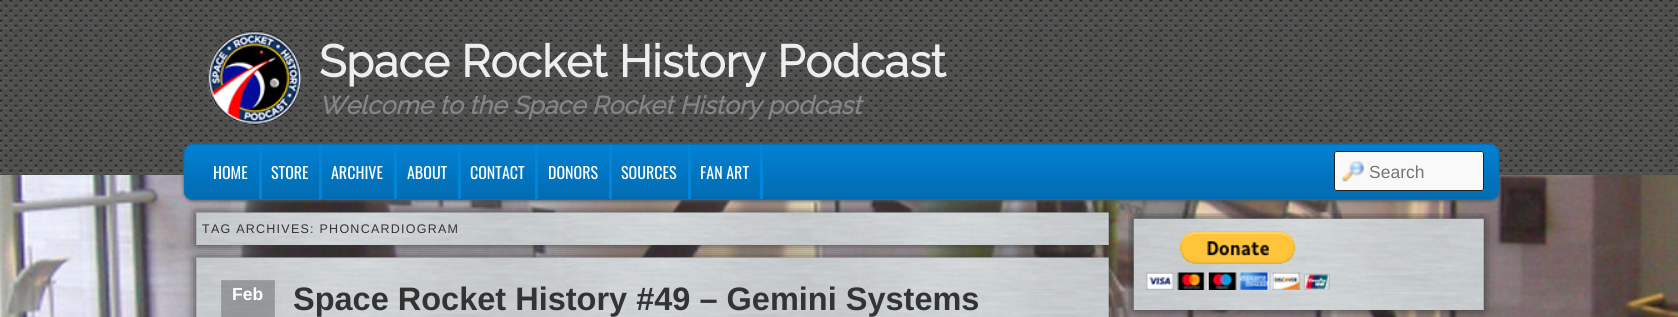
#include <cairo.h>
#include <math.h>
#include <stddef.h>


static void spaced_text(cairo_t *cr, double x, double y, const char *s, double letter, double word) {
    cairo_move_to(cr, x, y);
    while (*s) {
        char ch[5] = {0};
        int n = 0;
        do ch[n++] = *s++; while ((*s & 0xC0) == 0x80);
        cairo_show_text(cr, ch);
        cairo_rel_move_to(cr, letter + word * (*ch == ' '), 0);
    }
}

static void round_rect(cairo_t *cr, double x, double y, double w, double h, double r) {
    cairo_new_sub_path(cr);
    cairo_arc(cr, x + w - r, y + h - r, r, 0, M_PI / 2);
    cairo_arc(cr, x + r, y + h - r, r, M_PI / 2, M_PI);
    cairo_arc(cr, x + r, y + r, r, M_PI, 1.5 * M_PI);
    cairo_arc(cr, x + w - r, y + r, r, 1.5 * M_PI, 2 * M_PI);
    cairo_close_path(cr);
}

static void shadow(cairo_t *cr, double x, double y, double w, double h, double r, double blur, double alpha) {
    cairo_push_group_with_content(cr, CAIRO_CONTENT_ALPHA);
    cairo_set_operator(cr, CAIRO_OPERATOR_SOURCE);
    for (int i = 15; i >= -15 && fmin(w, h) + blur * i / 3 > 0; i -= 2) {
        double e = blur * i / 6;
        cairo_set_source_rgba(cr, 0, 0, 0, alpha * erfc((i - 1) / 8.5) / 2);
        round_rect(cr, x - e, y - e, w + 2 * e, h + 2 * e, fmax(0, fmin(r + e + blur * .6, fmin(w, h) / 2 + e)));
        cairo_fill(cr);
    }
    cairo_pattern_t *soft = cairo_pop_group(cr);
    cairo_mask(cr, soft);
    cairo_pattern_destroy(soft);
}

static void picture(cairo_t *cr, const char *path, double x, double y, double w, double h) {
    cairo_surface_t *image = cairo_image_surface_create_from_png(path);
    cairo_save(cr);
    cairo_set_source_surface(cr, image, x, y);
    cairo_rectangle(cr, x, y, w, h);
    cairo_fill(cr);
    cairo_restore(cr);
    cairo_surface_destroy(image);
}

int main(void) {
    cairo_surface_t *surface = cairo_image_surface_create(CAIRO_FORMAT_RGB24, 1678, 317);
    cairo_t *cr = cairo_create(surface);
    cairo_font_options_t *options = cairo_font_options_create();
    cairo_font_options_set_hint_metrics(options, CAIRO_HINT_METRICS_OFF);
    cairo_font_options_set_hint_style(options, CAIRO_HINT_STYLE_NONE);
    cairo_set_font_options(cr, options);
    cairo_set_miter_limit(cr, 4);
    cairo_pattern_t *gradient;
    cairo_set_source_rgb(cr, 1, 1, 1);
    cairo_paint(cr);
    picture(cr, "img1.png", 0, 175, 1678, 142);
    picture(cr, "img2.png", 0, 0, 1678, 175);
    picture(cr, "img3.png", 207, 31, 95, 94);
    cairo_select_font_face(cr, "Raleway", CAIRO_FONT_SLANT_NORMAL, CAIRO_FONT_WEIGHT_BOLD);
    cairo_set_font_size(cr, 45);
    cairo_set_source_rgb(cr, 0.933, 0.933, 0.933);
    cairo_move_to(cr, 319, 77);
    cairo_show_text(cr, "Space Rocket History Podcast");
    cairo_select_font_face(cr, "Raleway", CAIRO_FONT_SLANT_ITALIC, CAIRO_FONT_WEIGHT_BOLD);
    cairo_set_font_size(cr, 25);
    cairo_set_source_rgb(cr, 0.522, 0.522, 0.522);
    cairo_move_to(cr, 319, 114);
    cairo_show_text(cr, "Welcome to the Space Rocket History podcast");
    cairo_set_source_rgb(cr, 0.333, 0.333, 0.333);
    shadow(cr, 184, 145, 1315, 56, 9, 2, 1);
    cairo_save(cr);
    round_rect(cr, 184, 144, 1315, 56, 9);
    cairo_clip(cr);
    gradient = cairo_pattern_create_linear(841, 145, 841, 199);
    cairo_pattern_add_color_stop_rgba(gradient, 0, 0.008, 0.506, 0.831, 1);
    cairo_pattern_add_color_stop_rgba(gradient, 1, 0.008, 0.42, 0.69, 1);
    cairo_set_source(cr, gradient);
    cairo_pattern_destroy(gradient);
    cairo_rectangle(cr, 184, 145, 1315, 54);
    cairo_fill(cr);
    cairo_restore(cr);
    round_rect(cr, 184.5, 144.5, 1314, 55, 8.5);
    cairo_set_source_rgb(cr, 0.008, 0.455, 0.745);
    cairo_set_line_width(cr, 1);
    cairo_stroke(cr);
    cairo_set_source_rgb(cr, 0.2, 0.2, 0.2);
    shadow(cr, 196, 213, 913, 32, 0, 6, 1);
    cairo_set_source_rgb(cr, 0.008, 0.518, 0.851);
    cairo_rectangle(cr, 259, 145, 3, 54);
    cairo_fill(cr);
    cairo_select_font_face(cr, "Oswald", CAIRO_FONT_SLANT_NORMAL, CAIRO_FONT_WEIGHT_NORMAL);
    cairo_set_font_size(cr, 16);
    cairo_set_source_rgb(cr, 1, 1, 1);
    cairo_move_to(cr, 213, 179);
    cairo_show_text(cr, "HOME");
    cairo_set_source_rgb(cr, 0.008, 0.518, 0.851);
    cairo_rectangle(cr, 319, 145, 3, 54);
    cairo_fill(cr);
    cairo_set_source_rgb(cr, 1, 1, 1);
    cairo_move_to(cr, 271, 179);
    cairo_show_text(cr, "STORE");
    cairo_set_source_rgb(cr, 0.008, 0.518, 0.851);
    cairo_rectangle(cr, 394, 145, 3, 54);
    cairo_fill(cr);
    cairo_set_source_rgb(cr, 1, 1, 1);
    cairo_move_to(cr, 331, 179);
    cairo_show_text(cr, "ARCHIVE");
    cairo_set_source_rgb(cr, 0.008, 0.518, 0.851);
    cairo_rectangle(cr, 458, 145, 3, 54);
    cairo_fill(cr);
    cairo_set_source_rgb(cr, 1, 1, 1);
    cairo_move_to(cr, 407, 179);
    cairo_show_text(cr, "ABOUT");
    cairo_set_source_rgb(cr, 0.008, 0.518, 0.851);
    cairo_rectangle(cr, 535, 145, 3, 54);
    cairo_fill(cr);
    cairo_set_source_rgb(cr, 1, 1, 1);
    cairo_move_to(cr, 470, 179);
    cairo_show_text(cr, "CONTACT");
    cairo_set_source_rgb(cr, 0.008, 0.518, 0.851);
    cairo_rectangle(cr, 609, 145, 3, 54);
    cairo_fill(cr);
    cairo_set_source_rgb(cr, 1, 1, 1);
    cairo_move_to(cr, 548, 179);
    cairo_show_text(cr, "DONORS");
    cairo_set_source_rgb(cr, 0.008, 0.518, 0.851);
    cairo_rectangle(cr, 688, 145, 3, 54);
    cairo_fill(cr);
    cairo_set_source_rgb(cr, 1, 1, 1);
    cairo_move_to(cr, 621, 179);
    cairo_show_text(cr, "SOURCES");
    cairo_set_source_rgb(cr, 0.008, 0.518, 0.851);
    cairo_rectangle(cr, 760, 145, 3, 54);
    cairo_fill(cr);
    cairo_set_source_rgb(cr, 1, 1, 1);
    cairo_move_to(cr, 700, 179);
    cairo_show_text(cr, "FAN ART");
    cairo_set_source_rgb(cr, 0.976, 0.976, 0.976);
    round_rect(cr, 1334, 151, 150, 40, 2.5);
    cairo_fill(cr);
    picture(cr, "img4.png", 1342, 161, 22, 21);
    round_rect(cr, 1334.5, 151.5, 149, 39, 2);
    cairo_set_source_rgb(cr, 0.133, 0.133, 0.133);
    cairo_stroke(cr);
    cairo_select_font_face(cr, "Liberation Sans", CAIRO_FONT_SLANT_NORMAL, CAIRO_FONT_WEIGHT_NORMAL);
    cairo_set_font_size(cr, 17.5);
    cairo_set_source_rgb(cr, 0.459, 0.459, 0.459);
    cairo_move_to(cr, 1369, 178);
    cairo_show_text(cr, "Search");
    picture(cr, "img5.png", 196, 212, 913, 33);
    cairo_set_font_size(cr, 12.5);
    cairo_set_source_rgb(cr, 0.2, 0.2, 0.2);
    spaced_text(cr, 202, 233, "TAG ARCHIVES: PHONCARDIOGRAM", 1.25, 0);
    cairo_set_source_rgb(cr, 0.2, 0.2, 0.2);
    shadow(cr, 196, 258, 913, 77, 0, 6, 1);
    picture(cr, "img6.png", 196, 257, 913, 60);
    cairo_set_source_rgba(cr, 0, 0, 0, 0.25);
    cairo_rectangle(cr, 221.5, 280.5, 53, 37);
    cairo_fill_preserve(cr);
    cairo_set_source_rgb(cr, 0.627, 0.627, 0.627);
    cairo_stroke(cr);
    cairo_select_font_face(cr, "Liberation Sans", CAIRO_FONT_SLANT_NORMAL, CAIRO_FONT_WEIGHT_BOLD);
    cairo_set_font_size(cr, 17.5);
    cairo_set_source_rgb(cr, 1, 1, 1);
    cairo_move_to(cr, 232, 300);
    cairo_show_text(cr, "Feb");
    cairo_set_font_size(cr, 32.5);
    cairo_set_source_rgb(cr, 0.2, 0.2, 0.2);
    cairo_move_to(cr, 293, 310);
    cairo_show_text(cr, "Space Rocket History #49 – Gemini Systems");
    cairo_save(cr);
    cairo_rectangle(cr, 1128, 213, 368, 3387);
    cairo_clip(cr);
    cairo_set_source_rgb(cr, 0.2, 0.2, 0.2);
    shadow(cr, 1134, 219, 350, 91, 0, 6, 1);
    cairo_restore(cr);
    picture(cr, "img7.png", 1133, 218, 351, 92);
    picture(cr, "img8.png", 1146, 231, 184, 59);
    cairo_surface_write_to_png(surface, "page.png");
    cairo_font_options_destroy(options);
    cairo_destroy(cr);
    cairo_surface_destroy(surface);
    return 0;
}
